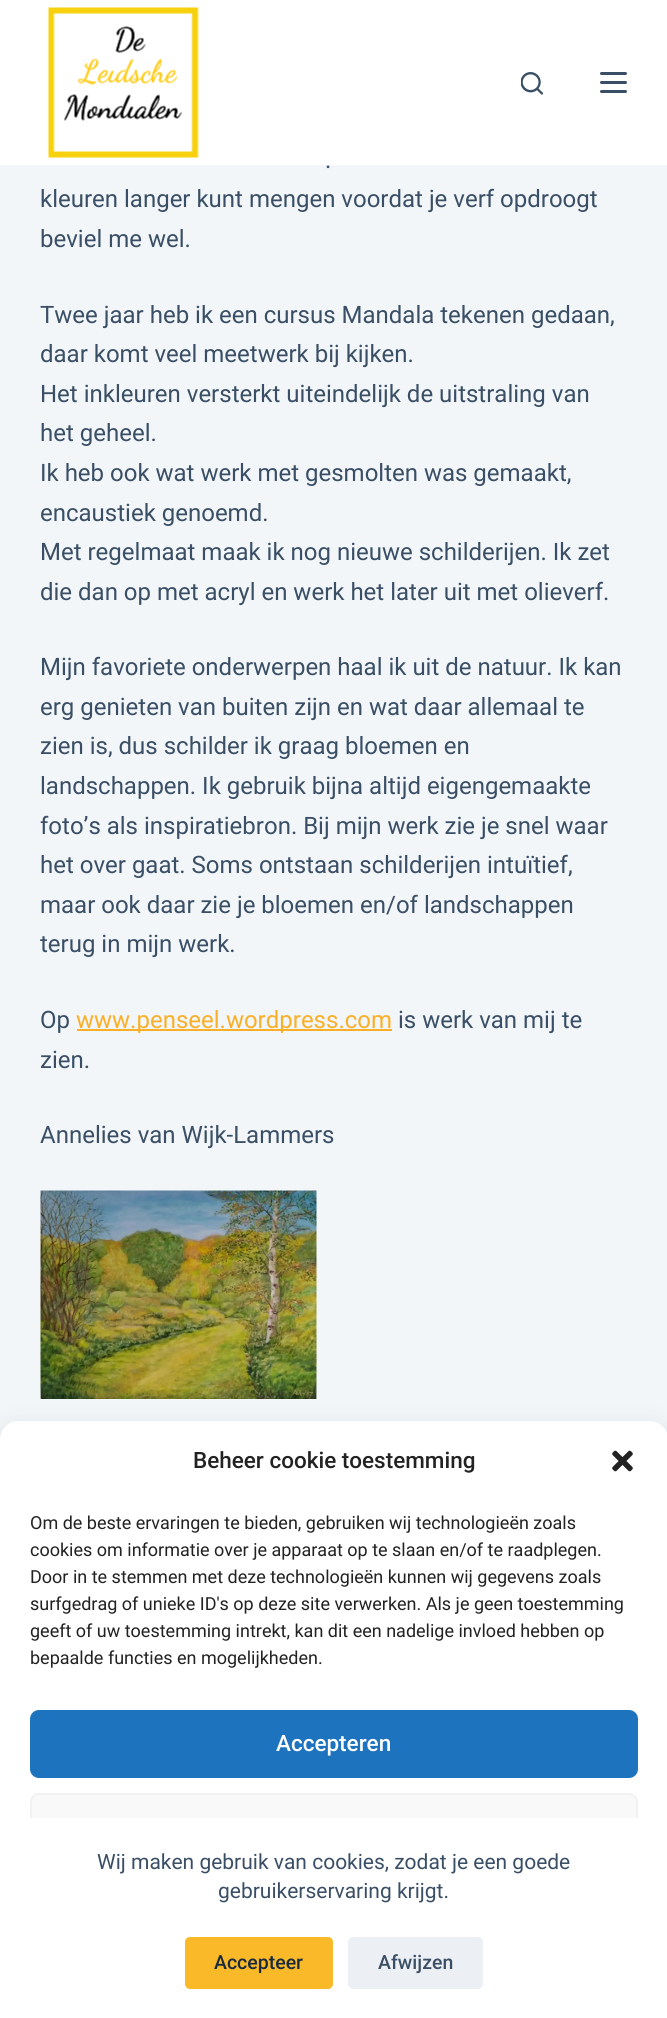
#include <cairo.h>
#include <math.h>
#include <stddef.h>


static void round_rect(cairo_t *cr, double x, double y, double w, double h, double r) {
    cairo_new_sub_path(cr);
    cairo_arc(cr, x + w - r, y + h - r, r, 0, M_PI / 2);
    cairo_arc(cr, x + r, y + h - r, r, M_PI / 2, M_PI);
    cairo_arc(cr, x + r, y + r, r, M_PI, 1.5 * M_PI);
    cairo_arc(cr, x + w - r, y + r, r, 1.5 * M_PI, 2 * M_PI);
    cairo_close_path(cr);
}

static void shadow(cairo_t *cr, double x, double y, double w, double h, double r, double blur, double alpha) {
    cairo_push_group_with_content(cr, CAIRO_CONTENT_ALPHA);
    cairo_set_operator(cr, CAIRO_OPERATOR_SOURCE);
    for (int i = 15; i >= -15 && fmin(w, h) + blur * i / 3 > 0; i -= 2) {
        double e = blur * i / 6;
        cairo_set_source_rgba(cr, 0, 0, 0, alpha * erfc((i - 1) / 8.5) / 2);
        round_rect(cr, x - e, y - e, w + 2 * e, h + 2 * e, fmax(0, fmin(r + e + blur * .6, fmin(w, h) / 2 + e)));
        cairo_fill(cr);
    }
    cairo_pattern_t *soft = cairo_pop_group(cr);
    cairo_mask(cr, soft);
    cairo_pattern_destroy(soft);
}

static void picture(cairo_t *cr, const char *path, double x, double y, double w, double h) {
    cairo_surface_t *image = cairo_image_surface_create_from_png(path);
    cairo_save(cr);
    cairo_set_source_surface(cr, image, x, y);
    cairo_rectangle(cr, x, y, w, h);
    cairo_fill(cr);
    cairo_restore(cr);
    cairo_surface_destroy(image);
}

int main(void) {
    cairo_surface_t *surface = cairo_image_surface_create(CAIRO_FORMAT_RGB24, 667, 2018);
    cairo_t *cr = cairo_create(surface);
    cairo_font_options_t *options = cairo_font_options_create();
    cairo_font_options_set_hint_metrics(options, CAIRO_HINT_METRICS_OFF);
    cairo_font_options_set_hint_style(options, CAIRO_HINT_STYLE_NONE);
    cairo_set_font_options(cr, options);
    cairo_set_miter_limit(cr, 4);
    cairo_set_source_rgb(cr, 0.949, 0.961, 0.969);
    cairo_paint(cr);
    cairo_set_source_rgb(cr, 1, 1, 1);
    cairo_rectangle(cr, 0, 0, 667, 165);
    cairo_fill(cr);
    picture(cr, "img1.png", 48, 7, 151, 151);
    picture(cr, "img2.png", 521, 72, 22, 23);
    cairo_set_source_rgb(cr, 0.227, 0.31, 0.4);
    round_rect(cr, 600, 72, 27, 3, 1.5);
    cairo_fill(cr);
    round_rect(cr, 600, 81, 27, 3, 1.5);
    cairo_fill(cr);
    round_rect(cr, 600, 90, 27, 3, 1.5);
    cairo_fill(cr);
    cairo_select_font_face(cr, "Roboto", CAIRO_FONT_SLANT_NORMAL, CAIRO_FONT_WEIGHT_NORMAL);
    cairo_set_font_size(cr, 24);
    cairo_move_to(cr, 325, 168);
    cairo_show_text(cr, ".");
    cairo_move_to(cr, 40, 207);
    cairo_show_text(cr, "kleuren langer kunt mengen voordat je verf opdroogt");
    cairo_move_to(cr, 40, 247);
    cairo_show_text(cr, "beviel me wel.");
    cairo_move_to(cr, 40, 323);
    cairo_show_text(cr, "Twee jaar heb ik een cursus Mandala tekenen gedaan,");
    cairo_move_to(cr, 40, 362);
    cairo_show_text(cr, "daar komt veel meetwerk bij kijken.");
    cairo_move_to(cr, 40, 402);
    cairo_show_text(cr, "Het inkleuren versterkt uiteindelijk de uitstraling van");
    cairo_move_to(cr, 40, 441);
    cairo_show_text(cr, "het geheel.");
    cairo_move_to(cr, 40, 481);
    cairo_show_text(cr, "Ik heb ook wat werk met gesmolten was gemaakt,");
    cairo_move_to(cr, 40, 521);
    cairo_show_text(cr, "encaustiek genoemd.");
    cairo_move_to(cr, 40, 560);
    cairo_show_text(cr, "Met regelmaat maak ik nog nieuwe schilderijen. Ik zet");
    cairo_move_to(cr, 40, 600);
    cairo_show_text(cr, "die dan op met acryl en werk het later uit met olieverf.");
    cairo_move_to(cr, 40, 675);
    cairo_show_text(cr, "Mijn favoriete onderwerpen haal ik uit de natuur. Ik kan");
    cairo_move_to(cr, 40, 715);
    cairo_show_text(cr, "erg genieten van buiten zijn en wat daar allemaal te");
    cairo_move_to(cr, 40, 754);
    cairo_show_text(cr, "zien is, dus schilder ik graag bloemen en");
    cairo_move_to(cr, 40, 794);
    cairo_show_text(cr, "landschappen. Ik gebruik bijna altijd eigengemaakte");
    cairo_move_to(cr, 40, 834);
    cairo_show_text(cr, "foto’s als inspiratiebron. Bij mijn werk zie je snel waar");
    cairo_move_to(cr, 40, 873);
    cairo_show_text(cr, "het over gaat. Soms ontstaan schilderijen intuïtief,");
    cairo_move_to(cr, 40, 913);
    cairo_show_text(cr, "maar ook daar zie je bloemen en/of landschappen");
    cairo_move_to(cr, 40, 952);
    cairo_show_text(cr, "terug in mijn werk.");
    cairo_move_to(cr, 40, 1028);
    cairo_show_text(cr, "Op");
    cairo_set_source_rgb(cr, 0.98, 0.686, 0.157);
    cairo_rectangle(cr, 77, 1029, 315, 2);
    cairo_fill(cr);
    cairo_move_to(cr, 76, 1028);
    cairo_show_text(cr, "www.penseel.wordpress.com");
    cairo_set_source_rgb(cr, 0.227, 0.31, 0.4);
    cairo_move_to(cr, 398, 1028);
    cairo_show_text(cr, "is werk van mij te");
    cairo_move_to(cr, 40, 1068);
    cairo_show_text(cr, "zien.");
    cairo_move_to(cr, 40, 1143);
    cairo_show_text(cr, "Annelies van Wijk-Lammers");
    picture(cr, "img3.png", 40, 1190, 277, 209);
    cairo_set_source_rgb(cr, 0, 0, 0);
    shadow(cr, 0, 1430, 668, 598, 18, 4.5, 0.23);
    shadow(cr, 0, 1436, 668, 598, 18, 15, 0.19);
    cairo_set_source_rgb(cr, 1, 1, 1);
    round_rect(cr, 0, 1421, 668, 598, 18);
    cairo_fill(cr);
    cairo_select_font_face(cr, "Roboto Medium", CAIRO_FONT_SLANT_NORMAL, CAIRO_FONT_WEIGHT_NORMAL);
    cairo_set_font_size(cr, 22.5);
    cairo_set_source_rgb(cr, 0.133, 0.133, 0.133);
    cairo_move_to(cr, 193, 1468);
    cairo_show_text(cr, "Beheer cookie toestemming");
    picture(cr, "img4.png", 612, 1450, 21, 22);
    cairo_select_font_face(cr, "Roboto", CAIRO_FONT_SLANT_NORMAL, CAIRO_FONT_WEIGHT_NORMAL);
    cairo_set_font_size(cr, 18);
    cairo_move_to(cr, 30, 1529);
    cairo_show_text(cr, "Om de beste ervaringen te bieden, gebruiken wij technologieën zoals");
    cairo_move_to(cr, 30, 1556);
    cairo_show_text(cr, "cookies om informatie over je apparaat op te slaan en/of te raadplegen.");
    cairo_move_to(cr, 30, 1583);
    cairo_show_text(cr, "Door in te stemmen met deze technologieën kunnen wij gegevens zoals");
    cairo_move_to(cr, 30, 1610);
    cairo_show_text(cr, "surfgedrag of unieke ID's op deze site verwerken. Als je geen toestemming");
    cairo_move_to(cr, 30, 1637);
    cairo_show_text(cr, "geeft of uw toestemming intrekt, kan dit een nadelige invloed hebben op");
    cairo_move_to(cr, 30, 1664);
    cairo_show_text(cr, "bepaalde functies en mogelijkheden.");
    cairo_set_source_rgb(cr, 0.118, 0.451, 0.745);
    round_rect(cr, 31, 1711, 606, 66, 8);
    cairo_fill_preserve(cr);
    cairo_stroke(cr);
    cairo_select_font_face(cr, "Roboto Medium", CAIRO_FONT_SLANT_NORMAL, CAIRO_FONT_WEIGHT_NORMAL);
    cairo_set_font_size(cr, 22.5);
    cairo_set_source_rgb(cr, 1, 1, 1);
    cairo_move_to(cr, 276, 1751);
    cairo_show_text(cr, "Accepteren");
    cairo_set_source_rgb(cr, 0.976, 0.976, 0.976);
    round_rect(cr, 31, 1794, 606, 65, 8);
    cairo_fill_preserve(cr);
    cairo_set_source_rgb(cr, 0.949, 0.949, 0.949);
    cairo_stroke(cr);
    cairo_set_source_rgb(cr, 1, 1, 1);
    cairo_rectangle(cr, 0, 1818, 667, 200);
    cairo_fill(cr);
    cairo_select_font_face(cr, "Roboto", CAIRO_FONT_SLANT_NORMAL, CAIRO_FONT_WEIGHT_NORMAL);
    cairo_set_font_size(cr, 21);
    cairo_set_source_rgb(cr, 0.227, 0.31, 0.4);
    cairo_move_to(cr, 97, 1869);
    cairo_show_text(cr, "Wij maken gebruik van cookies, zodat je een goede");
    cairo_move_to(cr, 218, 1898);
    cairo_show_text(cr, "gebruikerservaring krijgt.");
    cairo_set_source_rgb(cr, 0.98, 0.725, 0.157);
    round_rect(cr, 185, 1937, 148, 52, 5);
    cairo_fill(cr);
    cairo_select_font_face(cr, "Roboto Medium", CAIRO_FONT_SLANT_NORMAL, CAIRO_FONT_WEIGHT_NORMAL);
    cairo_set_font_size(cr, 19.5);
    cairo_set_source_rgb(cr, 0.098, 0.165, 0.239);
    cairo_move_to(cr, 214, 1969);
    cairo_show_text(cr, "Accepteer");
    cairo_set_source_rgb(cr, 0.925, 0.937, 0.953);
    round_rect(cr, 348, 1937, 135, 52, 5);
    cairo_fill(cr);
    cairo_set_source_rgb(cr, 0.227, 0.31, 0.4);
    cairo_move_to(cr, 378, 1969);
    cairo_show_text(cr, "Afwijzen");
    cairo_surface_write_to_png(surface, "page.png");
    cairo_font_options_destroy(options);
    cairo_destroy(cr);
    cairo_surface_destroy(surface);
    return 0;
}
